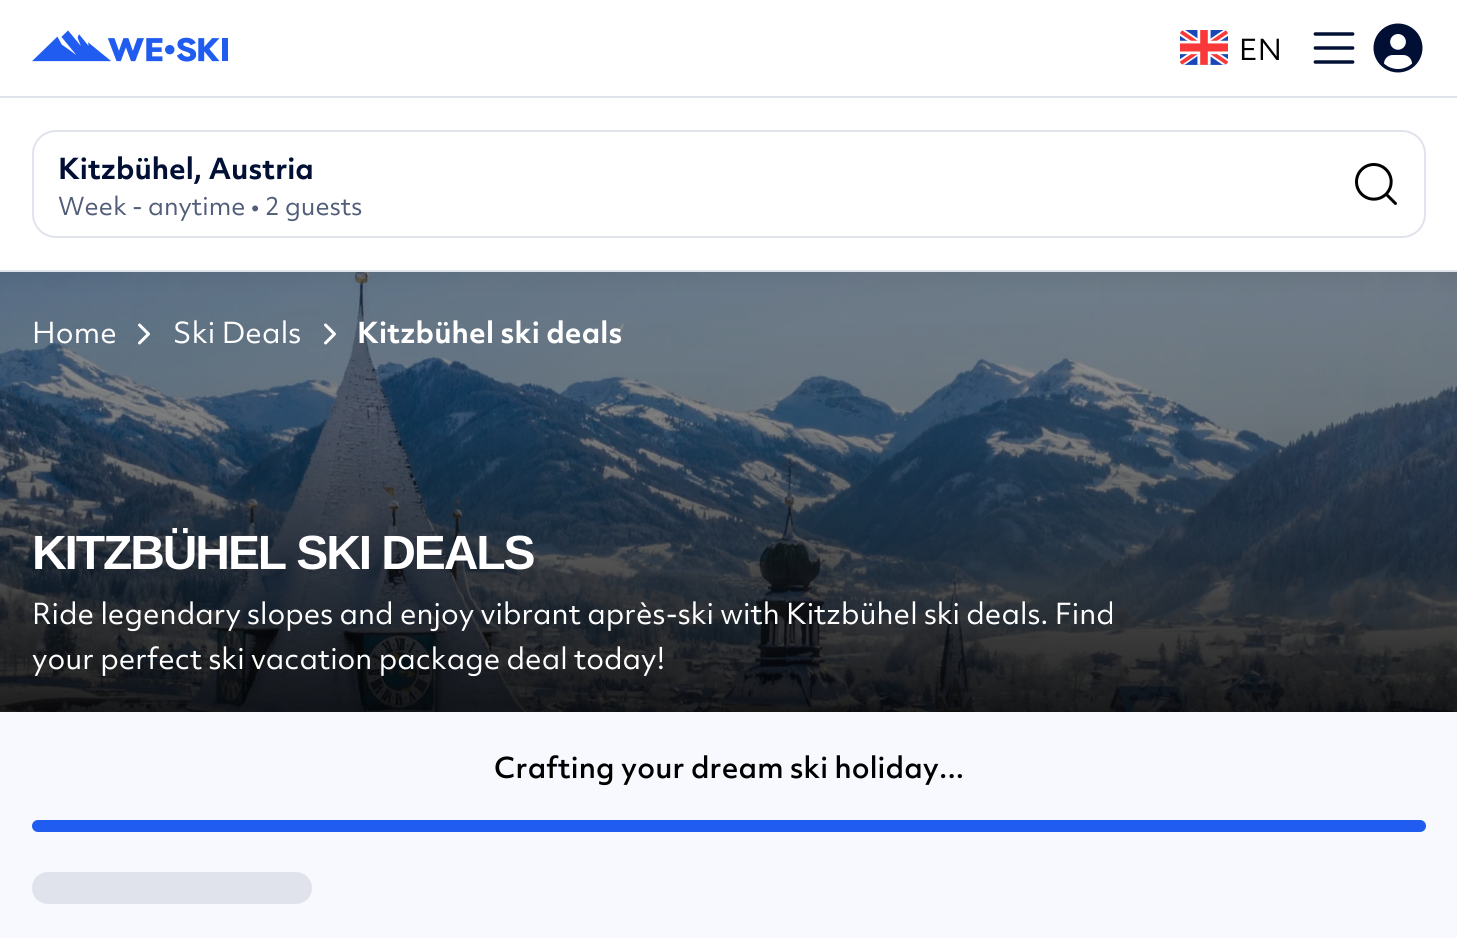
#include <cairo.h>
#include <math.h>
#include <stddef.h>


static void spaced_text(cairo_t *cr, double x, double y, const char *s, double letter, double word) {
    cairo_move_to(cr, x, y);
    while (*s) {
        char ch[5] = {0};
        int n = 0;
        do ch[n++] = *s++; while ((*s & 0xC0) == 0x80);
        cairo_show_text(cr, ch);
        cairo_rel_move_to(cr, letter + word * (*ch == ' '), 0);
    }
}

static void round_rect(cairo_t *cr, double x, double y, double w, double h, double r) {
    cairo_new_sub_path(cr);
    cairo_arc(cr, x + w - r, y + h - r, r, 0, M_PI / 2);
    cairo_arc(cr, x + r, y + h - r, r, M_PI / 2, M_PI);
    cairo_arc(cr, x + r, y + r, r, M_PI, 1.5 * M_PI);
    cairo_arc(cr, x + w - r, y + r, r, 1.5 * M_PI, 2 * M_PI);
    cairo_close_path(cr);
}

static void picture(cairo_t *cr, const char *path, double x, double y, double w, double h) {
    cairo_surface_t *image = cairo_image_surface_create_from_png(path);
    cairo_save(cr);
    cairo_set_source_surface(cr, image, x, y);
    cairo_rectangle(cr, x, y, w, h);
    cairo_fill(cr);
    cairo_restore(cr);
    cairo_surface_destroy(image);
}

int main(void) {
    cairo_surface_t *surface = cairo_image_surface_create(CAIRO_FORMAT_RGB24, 1457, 938);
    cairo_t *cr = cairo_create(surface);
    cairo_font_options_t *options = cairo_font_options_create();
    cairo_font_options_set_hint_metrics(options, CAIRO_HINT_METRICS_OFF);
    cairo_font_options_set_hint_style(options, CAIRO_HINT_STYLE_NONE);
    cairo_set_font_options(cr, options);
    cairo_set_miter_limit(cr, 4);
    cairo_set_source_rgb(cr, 1, 1, 1);
    cairo_paint(cr);
    cairo_set_source_rgb(cr, 0.878, 0.89, 0.922);
    cairo_rectangle(cr, 0, 96, 1457, 2);
    cairo_fill(cr);
    picture(cr, "img1.png", 32, 30, 196, 32);
    picture(cr, "img2.png", 1180, 30, 48, 35);
    cairo_select_font_face(cr, "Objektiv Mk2", CAIRO_FONT_SLANT_NORMAL, CAIRO_FONT_WEIGHT_NORMAL);
    cairo_set_font_size(cr, 28);
    cairo_set_source_rgb(cr, 0, 0, 0);
    spaced_text(cr, 1239, 60, "EN", 0.15, 0);
    picture(cr, "img3.png", 1313, 32, 42, 32);
    picture(cr, "img4.png", 1373, 23, 50, 50);
    cairo_set_source_rgb(cr, 0.965, 0.976, 0.996);
    cairo_rectangle(cr, 0, 712, 1457, 226);
    cairo_fill(cr);
    cairo_set_source_rgb(cr, 0.878, 0.89, 0.922);
    cairo_rectangle(cr, 0, 270, 1457, 2);
    cairo_fill(cr);
    round_rect(cr, 33, 131, 1392, 106, 23);
    cairo_stroke(cr);
    cairo_select_font_face(cr, "Objektiv Mk2", CAIRO_FONT_SLANT_NORMAL, CAIRO_FONT_WEIGHT_BOLD);
    cairo_set_source_rgb(cr, 0, 0.059, 0.2);
    cairo_move_to(cr, 58, 179);
    cairo_show_text(cr, "Kitzbühel, Austria");
    cairo_select_font_face(cr, "Objektiv Mk2", CAIRO_FONT_SLANT_NORMAL, CAIRO_FONT_WEIGHT_NORMAL);
    cairo_set_font_size(cr, 24);
    cairo_set_source_rgb(cr, 0.322, 0.365, 0.478);
    cairo_move_to(cr, 58, 215);
    cairo_show_text(cr, "Week - anytime • 2 guests");
    picture(cr, "img5.png", 1355, 163, 42, 42);
    picture(cr, "img6.png", 0, 272, 1457, 440);
    cairo_set_font_size(cr, 28);
    cairo_set_source_rgb(cr, 1, 1, 1);
    spaced_text(cr, 32, 343, "Home", 0.15, 0);
    picture(cr, "img7.png", 138, 323, 12, 22);
    spaced_text(cr, 173, 343, "Ski Deals", 0.15, 0);
    picture(cr, "img8.png", 324, 323, 12, 22);
    cairo_select_font_face(cr, "Objektiv Mk2", CAIRO_FONT_SLANT_NORMAL, CAIRO_FONT_WEIGHT_BOLD);
    spaced_text(cr, 357, 343, "Kitzbühel ski deals", 0.15, 0);
    cairo_select_font_face(cr, "Liberation Sans", CAIRO_FONT_SLANT_NORMAL, CAIRO_FONT_WEIGHT_BOLD);
    cairo_set_font_size(cr, 48);
    spaced_text(cr, 32, 569, "KITZBÜHEL SKI DEALS", -2.1, 0);
    cairo_select_font_face(cr, "Objektiv Mk2", CAIRO_FONT_SLANT_NORMAL, CAIRO_FONT_WEIGHT_NORMAL);
    cairo_set_font_size(cr, 28);
    cairo_move_to(cr, 32, 624);
    cairo_show_text(cr, "Ride legendary slopes and enjoy vibrant après-ski with Kitzbühel ski deals. Find");
    cairo_move_to(cr, 32, 669);
    cairo_show_text(cr, "your perfect ski vacation package deal today!");
    cairo_select_font_face(cr, "Objektiv Mk2 Medium", CAIRO_FONT_SLANT_NORMAL, CAIRO_FONT_WEIGHT_NORMAL);
    cairo_set_source_rgb(cr, 0, 0, 0);
    spaced_text(cr, 494, 778, "Crafting your dream ski holiday...", 0.15, 0);
    cairo_set_source_rgb(cr, 0.122, 0.361, 0.937);
    round_rect(cr, 32, 820, 1394, 12, 6);
    cairo_fill(cr);
    cairo_set_source_rgb(cr, 0.878, 0.89, 0.922);
    round_rect(cr, 32, 872, 280, 32, 16);
    cairo_fill(cr);
    cairo_surface_write_to_png(surface, "page.png");
    cairo_font_options_destroy(options);
    cairo_destroy(cr);
    cairo_surface_destroy(surface);
    return 0;
}
